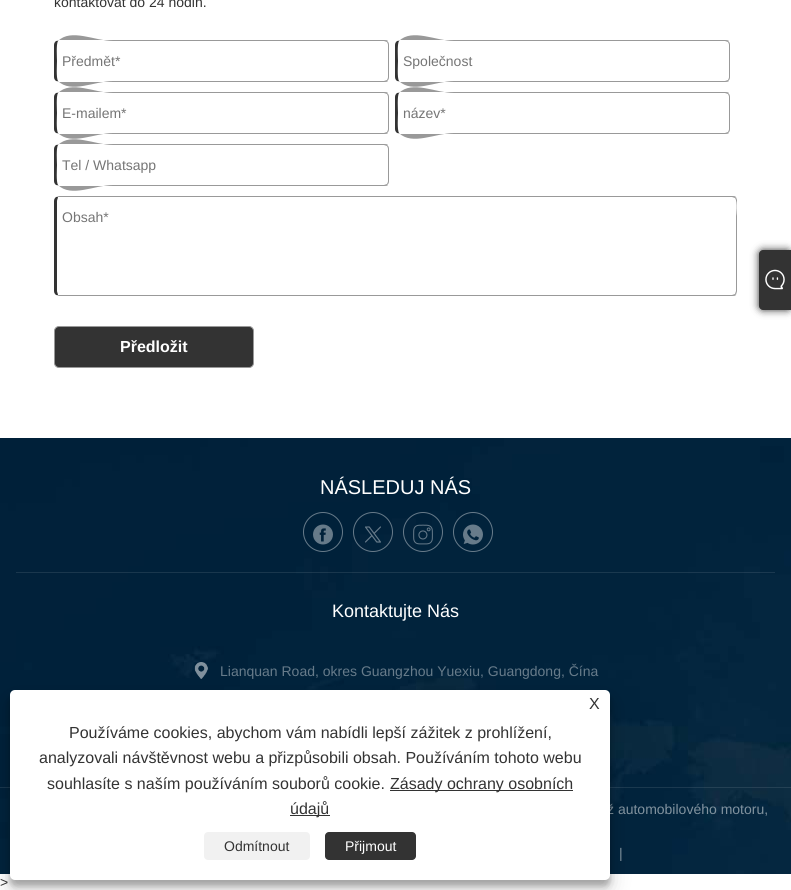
#include <cairo.h>
#include <math.h>
#include <stddef.h>


static void round_rect(cairo_t *cr, double x, double y, double w, double h, double r) {
    cairo_new_sub_path(cr);
    cairo_arc(cr, x + w - r, y + h - r, r, 0, M_PI / 2);
    cairo_arc(cr, x + r, y + h - r, r, M_PI / 2, M_PI);
    cairo_arc(cr, x + r, y + r, r, M_PI, 1.5 * M_PI);
    cairo_arc(cr, x + w - r, y + r, r, 1.5 * M_PI, 2 * M_PI);
    cairo_close_path(cr);
}

static void shadow(cairo_t *cr, double x, double y, double w, double h, double r, double blur, double alpha) {
    cairo_push_group_with_content(cr, CAIRO_CONTENT_ALPHA);
    cairo_set_operator(cr, CAIRO_OPERATOR_SOURCE);
    for (int i = 15; i >= -15 && fmin(w, h) + blur * i / 3 > 0; i -= 2) {
        double e = blur * i / 6;
        cairo_set_source_rgba(cr, 0, 0, 0, alpha * erfc((i - 1) / 8.5) / 2);
        round_rect(cr, x - e, y - e, w + 2 * e, h + 2 * e, fmax(0, fmin(r + e + blur * .6, fmin(w, h) / 2 + e)));
        cairo_fill(cr);
    }
    cairo_pattern_t *soft = cairo_pop_group(cr);
    cairo_mask(cr, soft);
    cairo_pattern_destroy(soft);
}

static void picture(cairo_t *cr, const char *path, double x, double y, double w, double h) {
    cairo_surface_t *image = cairo_image_surface_create_from_png(path);
    cairo_save(cr);
    cairo_set_source_surface(cr, image, x, y);
    cairo_rectangle(cr, x, y, w, h);
    cairo_fill(cr);
    cairo_restore(cr);
    cairo_surface_destroy(image);
}

int main(void) {
    cairo_surface_t *surface = cairo_image_surface_create(CAIRO_FORMAT_RGB24, 791, 890);
    cairo_t *cr = cairo_create(surface);
    cairo_font_options_t *options = cairo_font_options_create();
    cairo_font_options_set_hint_metrics(options, CAIRO_HINT_METRICS_OFF);
    cairo_font_options_set_hint_style(options, CAIRO_HINT_STYLE_NONE);
    cairo_set_font_options(cr, options);
    cairo_set_miter_limit(cr, 4);
    cairo_set_source_rgb(cr, 1, 1, 1);
    cairo_paint(cr);
    cairo_select_font_face(cr, "Liberation Sans", CAIRO_FONT_SLANT_NORMAL, CAIRO_FONT_WEIGHT_NORMAL);
    cairo_set_font_size(cr, 14);
    cairo_set_source_rgb(cr, 0.2, 0.2, 0.2);
    cairo_move_to(cr, 54, 7);
    cairo_show_text(cr, "kontaktovat do 24 hodin.");
    cairo_set_source_rgb(cr, 0.6, 0.6, 0.6);
    cairo_new_path(cr);
    cairo_move_to(cr, 59, 40);
    cairo_line_to(cr, 56, 41);
    cairo_line_to(cr, 58, 41);
    cairo_curve_to(cr, 71, 28, 95, 41, 113, 41);
    cairo_line_to(cr, 384, 41);
    cairo_line_to(cr, 387, 42);
    cairo_line_to(cr, 388, 41);
    cairo_curve_to(cr, 387, 40, 386, 40, 384, 40);
    cairo_close_path(cr);
    cairo_fill(cr);
    cairo_new_path(cr);
    cairo_move_to(cr, 389, 77);
    cairo_line_to(cr, 389, 45);
    cairo_curve_to(cr, 389, 43.5, 388.5, 42, 387.5, 41.5);
    cairo_line_to(cr, 387, 42);
    cairo_curve_to(cr, 387.5, 43, 388, 44, 388, 45);
    cairo_line_to(cr, 388, 77);
    cairo_curve_to(cr, 388, 78, 387.5, 79, 387, 80);
    cairo_line_to(cr, 387.5, 80.5);
    cairo_curve_to(cr, 388.5, 80, 389, 78.5, 389, 77);
    cairo_close_path(cr);
    cairo_fill(cr);
    cairo_new_path(cr);
    cairo_move_to(cr, 59, 82);
    cairo_line_to(cr, 384, 82);
    cairo_curve_to(cr, 386, 82, 387, 82, 388, 81);
    cairo_line_to(cr, 387, 80);
    cairo_line_to(cr, 384, 81);
    cairo_line_to(cr, 113, 81);
    cairo_curve_to(cr, 95, 81, 71, 94, 58, 81);
    cairo_line_to(cr, 56, 81);
    cairo_close_path(cr);
    cairo_fill(cr);
    cairo_set_source_rgb(cr, 0.2, 0.2, 0.2);
    cairo_new_path(cr);
    cairo_move_to(cr, 54, 45);
    cairo_line_to(cr, 54, 77);
    cairo_curve_to(cr, 54, 79, 55, 80, 56, 81);
    cairo_line_to(cr, 58, 81);
    cairo_curve_to(cr, 56, 78, 57, 64, 57, 61);
    cairo_curve_to(cr, 57, 58, 56, 44, 58, 41);
    cairo_line_to(cr, 56, 41);
    cairo_curve_to(cr, 55, 42, 54, 43, 54, 45);
    cairo_close_path(cr);
    cairo_fill(cr);
    cairo_set_source_rgb(cr, 0.459, 0.459, 0.459);
    cairo_move_to(cr, 62, 66);
    cairo_show_text(cr, "Předmět*");
    cairo_set_source_rgb(cr, 0.6, 0.6, 0.6);
    cairo_new_path(cr);
    cairo_move_to(cr, 400, 40);
    cairo_line_to(cr, 397, 41);
    cairo_line_to(cr, 399, 41);
    cairo_curve_to(cr, 412, 28, 436, 41, 454, 41);
    cairo_line_to(cr, 725, 41);
    cairo_line_to(cr, 728, 42);
    cairo_line_to(cr, 729, 41);
    cairo_curve_to(cr, 728, 40, 726, 40, 725, 40);
    cairo_close_path(cr);
    cairo_fill(cr);
    cairo_new_path(cr);
    cairo_move_to(cr, 730, 77);
    cairo_line_to(cr, 730, 45);
    cairo_curve_to(cr, 730, 43.5, 729.5, 42, 728.5, 41.5);
    cairo_line_to(cr, 728, 42);
    cairo_curve_to(cr, 728.5, 43, 729, 44, 729, 45);
    cairo_line_to(cr, 729, 77);
    cairo_curve_to(cr, 729, 78, 728.5, 79, 728, 80);
    cairo_line_to(cr, 728.5, 80.5);
    cairo_curve_to(cr, 729.5, 80, 730, 78.5, 730, 77);
    cairo_close_path(cr);
    cairo_fill(cr);
    cairo_new_path(cr);
    cairo_move_to(cr, 400, 82);
    cairo_line_to(cr, 725, 82);
    cairo_curve_to(cr, 726, 82, 728, 82, 729, 81);
    cairo_line_to(cr, 728, 80);
    cairo_line_to(cr, 725, 81);
    cairo_line_to(cr, 454, 81);
    cairo_curve_to(cr, 436, 81, 412, 94, 399, 81);
    cairo_line_to(cr, 397, 81);
    cairo_close_path(cr);
    cairo_fill(cr);
    cairo_set_source_rgb(cr, 0.2, 0.2, 0.2);
    cairo_new_path(cr);
    cairo_move_to(cr, 395, 45);
    cairo_line_to(cr, 395, 77);
    cairo_curve_to(cr, 395, 79, 396, 80, 397, 81);
    cairo_line_to(cr, 399, 81);
    cairo_curve_to(cr, 397, 78, 398, 64, 398, 61);
    cairo_curve_to(cr, 398, 58, 397, 44, 399, 41);
    cairo_line_to(cr, 397, 41);
    cairo_curve_to(cr, 396, 42, 395, 43, 395, 45);
    cairo_close_path(cr);
    cairo_fill(cr);
    cairo_set_source_rgb(cr, 0.459, 0.459, 0.459);
    cairo_move_to(cr, 403, 66);
    cairo_show_text(cr, "Společnost");
    cairo_set_source_rgb(cr, 0.6, 0.6, 0.6);
    cairo_new_path(cr);
    cairo_move_to(cr, 59, 92);
    cairo_line_to(cr, 56, 93);
    cairo_line_to(cr, 58, 93);
    cairo_curve_to(cr, 71, 80, 95, 93, 113, 93);
    cairo_line_to(cr, 384, 93);
    cairo_line_to(cr, 387, 94);
    cairo_line_to(cr, 388, 93);
    cairo_curve_to(cr, 387, 92, 386, 92, 384, 92);
    cairo_close_path(cr);
    cairo_fill(cr);
    cairo_new_path(cr);
    cairo_move_to(cr, 389, 129);
    cairo_line_to(cr, 389, 97);
    cairo_curve_to(cr, 389, 95.5, 388.5, 94, 387.5, 93.5);
    cairo_line_to(cr, 387, 94);
    cairo_curve_to(cr, 387.5, 95, 388, 96, 388, 97);
    cairo_line_to(cr, 388, 129);
    cairo_curve_to(cr, 388, 130, 387.5, 131, 387, 132);
    cairo_line_to(cr, 387.5, 132.5);
    cairo_curve_to(cr, 388.5, 132, 389, 130.5, 389, 129);
    cairo_close_path(cr);
    cairo_fill(cr);
    cairo_new_path(cr);
    cairo_move_to(cr, 59, 134);
    cairo_line_to(cr, 384, 134);
    cairo_curve_to(cr, 386, 134, 387, 134, 388, 133);
    cairo_line_to(cr, 387, 132);
    cairo_line_to(cr, 384, 133);
    cairo_line_to(cr, 113, 133);
    cairo_curve_to(cr, 95, 133, 71, 146, 58, 133);
    cairo_line_to(cr, 56, 133);
    cairo_close_path(cr);
    cairo_fill(cr);
    cairo_set_source_rgb(cr, 0.2, 0.2, 0.2);
    cairo_new_path(cr);
    cairo_move_to(cr, 54, 97);
    cairo_line_to(cr, 54, 129);
    cairo_curve_to(cr, 54, 131, 55, 132, 56, 133);
    cairo_line_to(cr, 58, 133);
    cairo_curve_to(cr, 56, 130, 57, 116, 57, 113);
    cairo_curve_to(cr, 57, 110, 56, 96, 58, 93);
    cairo_line_to(cr, 56, 93);
    cairo_curve_to(cr, 55, 94, 54, 95, 54, 97);
    cairo_close_path(cr);
    cairo_fill(cr);
    cairo_set_source_rgb(cr, 0.459, 0.459, 0.459);
    cairo_move_to(cr, 62, 118);
    cairo_show_text(cr, "E-mailem*");
    cairo_set_source_rgb(cr, 0.6, 0.6, 0.6);
    cairo_new_path(cr);
    cairo_move_to(cr, 400, 92);
    cairo_line_to(cr, 397, 93);
    cairo_line_to(cr, 399, 93);
    cairo_curve_to(cr, 412, 80, 436, 93, 454, 93);
    cairo_line_to(cr, 725, 93);
    cairo_line_to(cr, 728, 94);
    cairo_line_to(cr, 729, 93);
    cairo_curve_to(cr, 728, 92, 726, 92, 725, 92);
    cairo_close_path(cr);
    cairo_fill(cr);
    cairo_new_path(cr);
    cairo_move_to(cr, 730, 129);
    cairo_line_to(cr, 730, 97);
    cairo_curve_to(cr, 730, 95.5, 729.5, 94, 728.5, 93.5);
    cairo_line_to(cr, 728, 94);
    cairo_curve_to(cr, 728.5, 95, 729, 96, 729, 97);
    cairo_line_to(cr, 729, 129);
    cairo_curve_to(cr, 729, 130, 728.5, 131, 728, 132);
    cairo_line_to(cr, 728.5, 132.5);
    cairo_curve_to(cr, 729.5, 132, 730, 130.5, 730, 129);
    cairo_close_path(cr);
    cairo_fill(cr);
    cairo_new_path(cr);
    cairo_move_to(cr, 400, 134);
    cairo_line_to(cr, 725, 134);
    cairo_curve_to(cr, 726, 134, 728, 134, 729, 133);
    cairo_line_to(cr, 728, 132);
    cairo_line_to(cr, 725, 133);
    cairo_line_to(cr, 454, 133);
    cairo_curve_to(cr, 436, 133, 412, 146, 399, 133);
    cairo_line_to(cr, 397, 133);
    cairo_close_path(cr);
    cairo_fill(cr);
    cairo_set_source_rgb(cr, 0.2, 0.2, 0.2);
    cairo_new_path(cr);
    cairo_move_to(cr, 395, 97);
    cairo_line_to(cr, 395, 129);
    cairo_curve_to(cr, 395, 131, 396, 132, 397, 133);
    cairo_line_to(cr, 399, 133);
    cairo_curve_to(cr, 397, 130, 398, 116, 398, 113);
    cairo_curve_to(cr, 398, 110, 397, 96, 399, 93);
    cairo_line_to(cr, 397, 93);
    cairo_curve_to(cr, 396, 94, 395, 95, 395, 97);
    cairo_close_path(cr);
    cairo_fill(cr);
    cairo_set_source_rgb(cr, 0.459, 0.459, 0.459);
    cairo_move_to(cr, 403, 118);
    cairo_show_text(cr, "název*");
    cairo_set_source_rgb(cr, 0.6, 0.6, 0.6);
    cairo_new_path(cr);
    cairo_move_to(cr, 59, 144);
    cairo_line_to(cr, 56, 145);
    cairo_line_to(cr, 58, 145);
    cairo_curve_to(cr, 71, 132, 95, 145, 113, 145);
    cairo_line_to(cr, 384, 145);
    cairo_line_to(cr, 387, 146);
    cairo_line_to(cr, 388, 145);
    cairo_curve_to(cr, 387, 144, 386, 144, 384, 144);
    cairo_close_path(cr);
    cairo_fill(cr);
    cairo_new_path(cr);
    cairo_move_to(cr, 389, 181);
    cairo_line_to(cr, 389, 149);
    cairo_curve_to(cr, 389, 147.5, 388.5, 146, 387.5, 145.5);
    cairo_line_to(cr, 387, 146);
    cairo_curve_to(cr, 387.5, 147, 388, 148, 388, 149);
    cairo_line_to(cr, 388, 181);
    cairo_curve_to(cr, 388, 182, 387.5, 183, 387, 184);
    cairo_line_to(cr, 387.5, 184.5);
    cairo_curve_to(cr, 388.5, 184, 389, 182.5, 389, 181);
    cairo_close_path(cr);
    cairo_fill(cr);
    cairo_new_path(cr);
    cairo_move_to(cr, 59, 186);
    cairo_line_to(cr, 384, 186);
    cairo_curve_to(cr, 386, 186, 387, 186, 388, 185);
    cairo_line_to(cr, 387, 184);
    cairo_line_to(cr, 384, 185);
    cairo_line_to(cr, 113, 185);
    cairo_curve_to(cr, 95, 185, 71, 198, 58, 185);
    cairo_line_to(cr, 56, 185);
    cairo_close_path(cr);
    cairo_fill(cr);
    cairo_set_source_rgb(cr, 0.2, 0.2, 0.2);
    cairo_new_path(cr);
    cairo_move_to(cr, 54, 149);
    cairo_line_to(cr, 54, 181);
    cairo_curve_to(cr, 54, 183, 55, 184, 56, 185);
    cairo_line_to(cr, 58, 185);
    cairo_curve_to(cr, 56, 182, 57, 168, 57, 165);
    cairo_curve_to(cr, 57, 162, 56, 148, 58, 145);
    cairo_line_to(cr, 56, 145);
    cairo_curve_to(cr, 55, 146, 54, 147, 54, 149);
    cairo_close_path(cr);
    cairo_fill(cr);
    cairo_set_source_rgb(cr, 0.459, 0.459, 0.459);
    cairo_move_to(cr, 62, 170);
    cairo_show_text(cr, "Tel / Whatsapp");
    cairo_set_source_rgb(cr, 0.6, 0.6, 0.6);
    cairo_new_path(cr);
    cairo_move_to(cr, 59, 196);
    cairo_line_to(cr, 56, 197);
    cairo_line_to(cr, 58, 197);
    cairo_line_to(cr, 59, 197);
    cairo_line_to(cr, 732, 197);
    cairo_line_to(cr, 735, 198);
    cairo_line_to(cr, 736, 197);
    cairo_curve_to(cr, 735, 196, 734, 196, 732, 196);
    cairo_close_path(cr);
    cairo_fill(cr);
    cairo_new_path(cr);
    cairo_move_to(cr, 737, 291);
    cairo_line_to(cr, 737, 200);
    cairo_line_to(cr, 736, 197);
    cairo_line_to(cr, 735, 198);
    cairo_curve_to(cr, 738, 202, 736, 216, 736, 216);
    cairo_line_to(cr, 736, 291);
    cairo_line_to(cr, 735, 294);
    cairo_line_to(cr, 736, 295);
    cairo_curve_to(cr, 736, 294, 737, 292, 737, 291);
    cairo_close_path(cr);
    cairo_fill(cr);
    cairo_new_path(cr);
    cairo_move_to(cr, 59, 296);
    cairo_line_to(cr, 732, 296);
    cairo_curve_to(cr, 734, 296, 735, 296, 736, 295);
    cairo_line_to(cr, 735, 294);
    cairo_line_to(cr, 732, 295);
    cairo_line_to(cr, 59, 295);
    cairo_line_to(cr, 58, 295);
    cairo_line_to(cr, 56, 295);
    cairo_close_path(cr);
    cairo_fill(cr);
    cairo_set_source_rgb(cr, 0.2, 0.2, 0.2);
    cairo_new_path(cr);
    cairo_move_to(cr, 54, 201);
    cairo_line_to(cr, 54, 291);
    cairo_curve_to(cr, 54, 293, 55, 294, 56, 295);
    cairo_line_to(cr, 58, 295);
    cairo_curve_to(cr, 58, 294, 57, 292, 57, 291);
    cairo_line_to(cr, 57, 201);
    cairo_curve_to(cr, 57, 200, 58, 198, 58, 197);
    cairo_line_to(cr, 56, 197);
    cairo_curve_to(cr, 55, 198, 54, 199, 54, 201);
    cairo_close_path(cr);
    cairo_fill(cr);
    cairo_set_source_rgb(cr, 0.459, 0.459, 0.459);
    cairo_move_to(cr, 62, 222);
    cairo_show_text(cr, "Obsah*");
    cairo_set_source_rgb(cr, 0.2, 0.2, 0.2);
    round_rect(cr, 54.5, 326.5, 199, 41, 4.5);
    cairo_fill_preserve(cr);
    cairo_set_source_rgb(cr, 0.6, 0.6, 0.6);
    cairo_set_line_width(cr, 1);
    cairo_stroke(cr);
    cairo_select_font_face(cr, "Liberation Sans", CAIRO_FONT_SLANT_NORMAL, CAIRO_FONT_WEIGHT_BOLD);
    cairo_set_font_size(cr, 16);
    cairo_set_source_rgb(cr, 1, 1, 1);
    cairo_move_to(cr, 120, 352);
    cairo_show_text(cr, "Předložit");
    picture(cr, "img1.png", 0, 438, 791, 436);
    cairo_set_source_rgba(cr, 1, 1, 1, 0.1);
    cairo_rectangle(cr, 16, 572, 759, 1);
    cairo_fill(cr);
    cairo_select_font_face(cr, "Liberation Sans", CAIRO_FONT_SLANT_NORMAL, CAIRO_FONT_WEIGHT_NORMAL);
    cairo_set_font_size(cr, 20);
    cairo_set_source_rgb(cr, 1, 1, 1);
    cairo_move_to(cr, 320, 494);
    cairo_show_text(cr, "NÁSLEDUJ NÁS");
    cairo_new_path(cr);
    cairo_arc(cr, 323, 532, 19.5, 0, 2 * M_PI);
    cairo_set_source_rgb(cr, 0.4, 0.478, 0.537);
    cairo_stroke(cr);
    picture(cr, "img2.png", 313, 524, 20, 21);
    cairo_arc(cr, 373, 532, 19.5, 0, 2 * M_PI);
    cairo_set_source_rgba(cr, 1, 1, 1, 0.4);
    cairo_stroke(cr);
    picture(cr, "img3.png", 365, 526, 16, 17);
    cairo_arc(cr, 423, 532, 19.5, 0, 2 * M_PI);
    cairo_stroke(cr);
    picture(cr, "img4.png", 413, 524, 20, 21);
    cairo_arc(cr, 473, 532, 19.5, 0, 2 * M_PI);
    cairo_set_source_rgb(cr, 0.404, 0.482, 0.541);
    cairo_stroke(cr);
    picture(cr, "img5.png", 463, 524, 20, 21);
    cairo_set_font_size(cr, 18);
    cairo_set_source_rgb(cr, 1, 1, 1);
    cairo_move_to(cr, 332, 617);
    cairo_show_text(cr, "Kontaktujte Nás");
    picture(cr, "img6.png", 194, 662, 14, 17);
    cairo_set_font_size(cr, 14);
    cairo_set_source_rgb(cr, 0.404, 0.482, 0.541);
    cairo_move_to(cr, 220, 676);
    cairo_show_text(cr, "Lianquan Road, okres Guangzhou Yuexiu, Guangdong, Čína");
    cairo_set_source_rgba(cr, 1, 1, 1, 0.1);
    cairo_rectangle(cr, 0, 787, 791, 1);
    cairo_fill(cr);
    cairo_set_source_rgb(cr, 0.506, 0.573, 0.62);
    cairo_move_to(cr, 607, 814);
    cairo_show_text(cr, "ž automobilového motoru,");
    cairo_move_to(cr, 619, 858);
    cairo_show_text(cr, "|");
    cairo_set_source_rgb(cr, 0.2, 0.2, 0.2);
    shadow(cr, 759, 250, 32, 60, 4, 4, 1);
    cairo_set_source_rgb(cr, 0.2, 0.2, 0.2);
    cairo_new_path(cr);
    cairo_move_to(cr, 763, 250);
    cairo_line_to(cr, 791, 250);
    cairo_line_to(cr, 791, 310);
    cairo_line_to(cr, 763, 310);
    cairo_curve_to(cr, 761, 310, 759, 308, 759, 306);
    cairo_line_to(cr, 759, 254);
    cairo_curve_to(cr, 759, 252, 761, 250, 763, 250);
    cairo_close_path(cr);
    cairo_fill(cr);
    picture(cr, "img7.png", 765, 269, 20, 21);
    cairo_set_source_rgb(cr, 0, 0, 0);
    shadow(cr, 10, 696, 600, 190, 5, 3, 0.23);
    shadow(cr, 10, 700, 600, 190, 5, 10, 0.19);
    cairo_set_source_rgb(cr, 1, 1, 1);
    round_rect(cr, 10, 690, 600, 190, 5);
    cairo_fill(cr);
    cairo_set_font_size(cr, 16);
    cairo_set_source_rgb(cr, 0.2, 0.2, 0.2);
    cairo_move_to(cr, 589, 709);
    cairo_show_text(cr, "X");
    cairo_move_to(cr, 69, 738);
    cairo_show_text(cr, "Používáme cookies, abychom vám nabídli lepší zážitek z prohlížení,");
    cairo_move_to(cr, 39, 763);
    cairo_show_text(cr, "analyzovali návštěvnost webu a přizpůsobili obsah. Používáním tohoto webu");
    cairo_move_to(cr, 47, 789);
    cairo_show_text(cr, "souhlasíte s naším používáním souborů cookie.");
    cairo_rectangle(cr, 390, 790, 183, 1);
    cairo_fill(cr);
    cairo_move_to(cr, 390, 789);
    cairo_show_text(cr, "Zásady ochrany osobních");
    cairo_rectangle(cr, 290, 815, 40, 1);
    cairo_fill(cr);
    cairo_move_to(cr, 290, 814);
    cairo_show_text(cr, "údajů");
    cairo_set_source_rgb(cr, 0.945, 0.945, 0.945);
    round_rect(cr, 204, 832, 106, 28, 4);
    cairo_fill(cr);
    cairo_set_font_size(cr, 14);
    cairo_set_source_rgb(cr, 0.2, 0.2, 0.2);
    cairo_move_to(cr, 224, 851);
    cairo_show_text(cr, "Odmítnout");
    round_rect(cr, 325, 832, 91, 28, 4);
    cairo_fill(cr);
    cairo_set_source_rgb(cr, 1, 1, 1);
    cairo_move_to(cr, 345, 851);
    cairo_show_text(cr, "Přijmout");
    cairo_set_source_rgb(cr, 0.2, 0.2, 0.2);
    cairo_move_to(cr, 0, 887);
    cairo_show_text(cr, ">");
    cairo_surface_write_to_png(surface, "page.png");
    cairo_font_options_destroy(options);
    cairo_destroy(cr);
    cairo_surface_destroy(surface);
    return 0;
}
